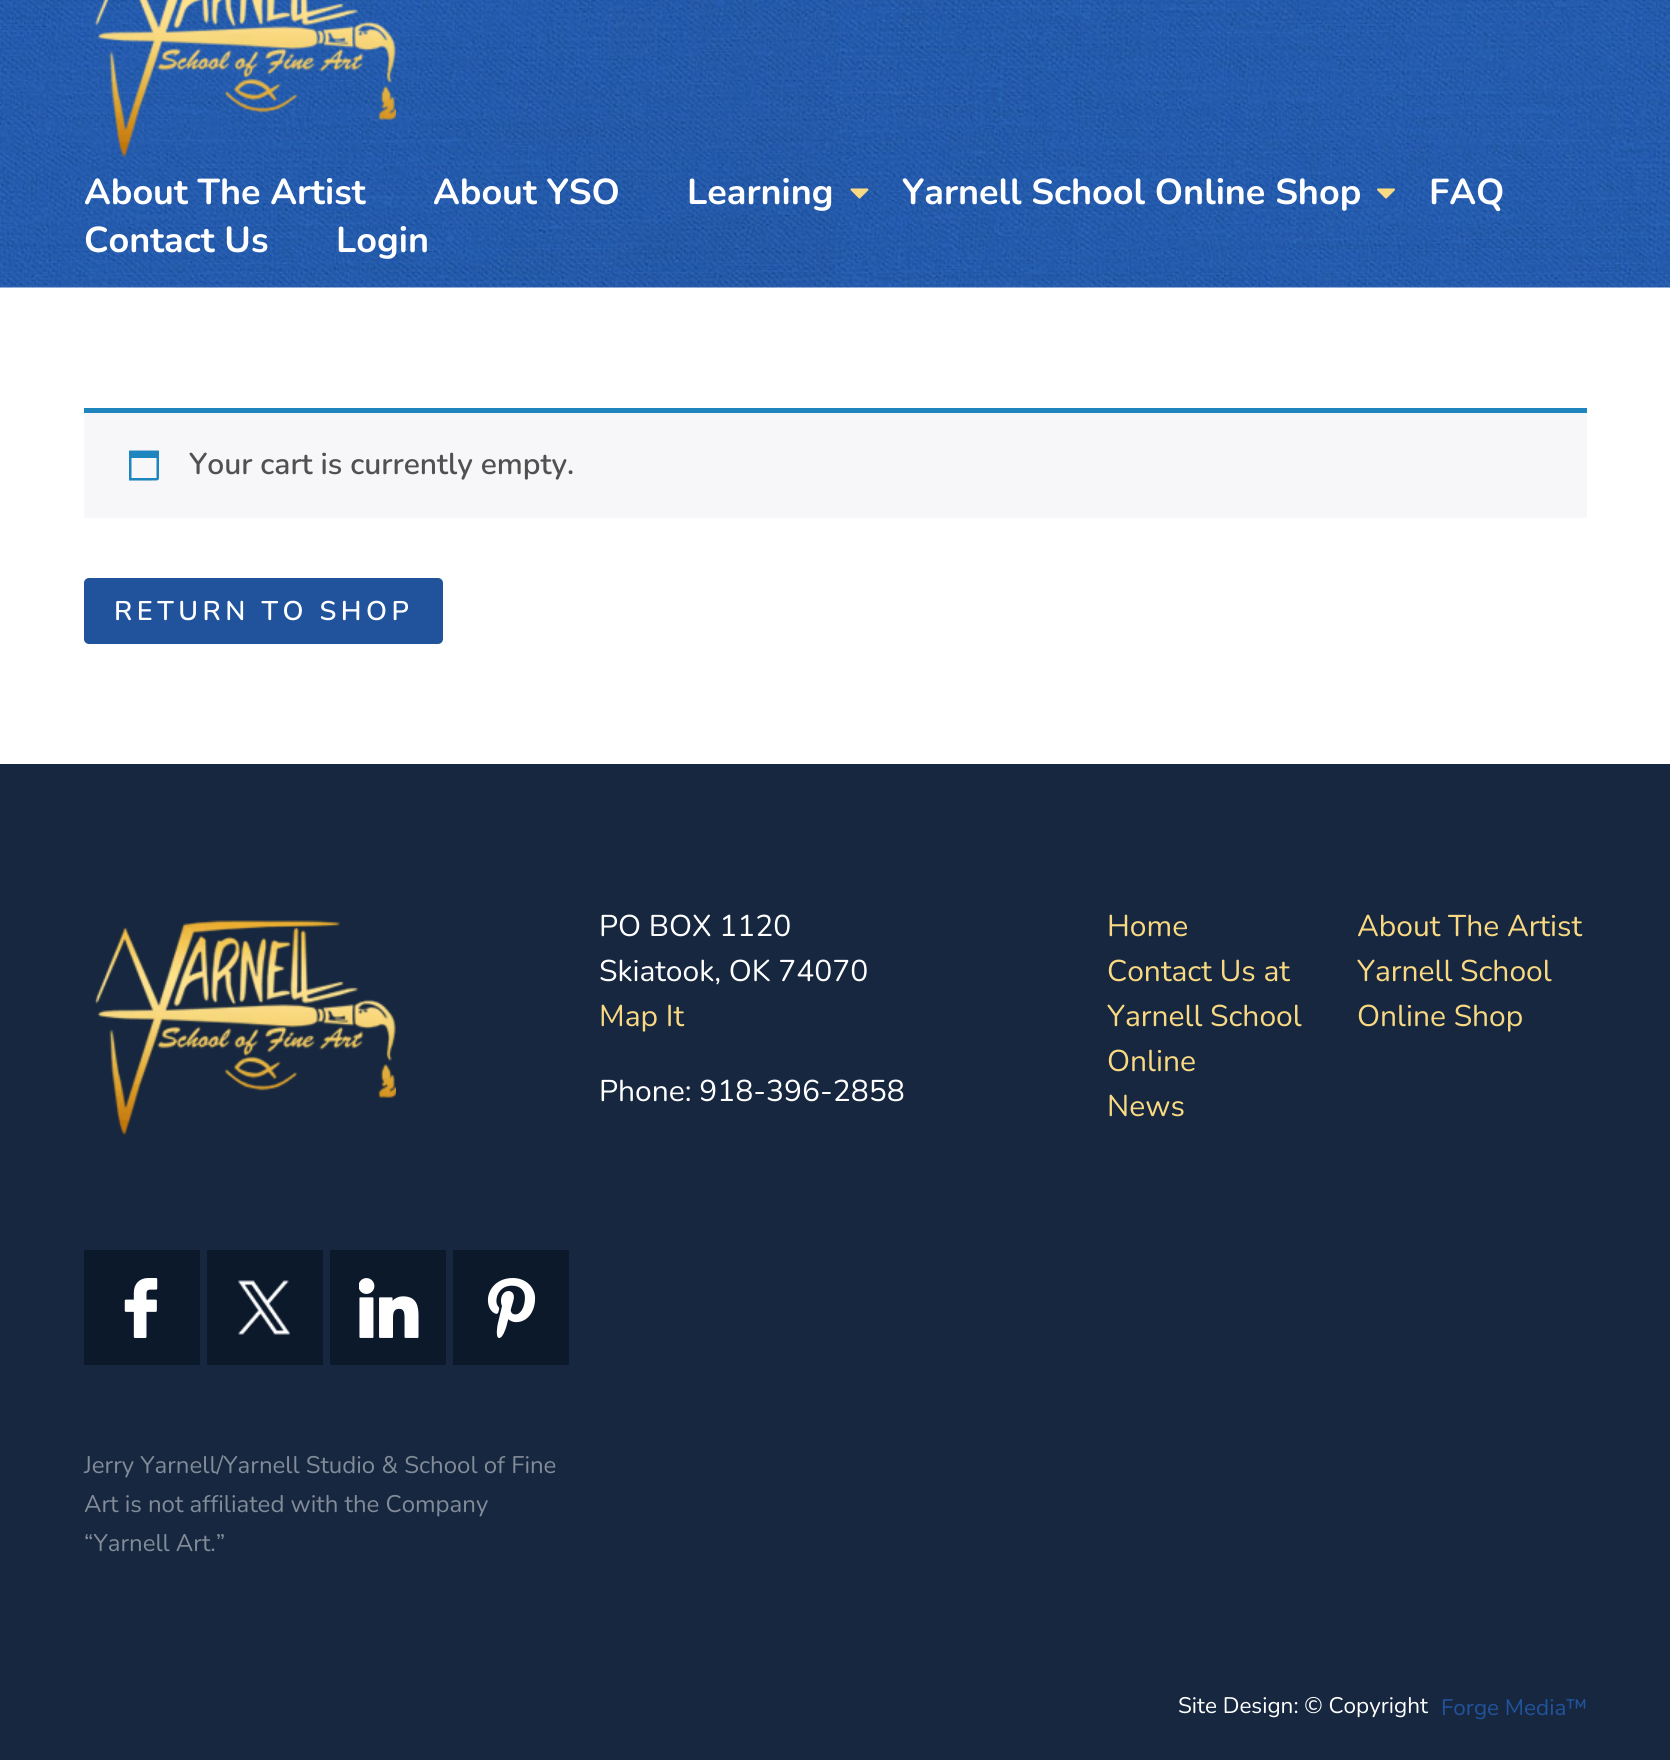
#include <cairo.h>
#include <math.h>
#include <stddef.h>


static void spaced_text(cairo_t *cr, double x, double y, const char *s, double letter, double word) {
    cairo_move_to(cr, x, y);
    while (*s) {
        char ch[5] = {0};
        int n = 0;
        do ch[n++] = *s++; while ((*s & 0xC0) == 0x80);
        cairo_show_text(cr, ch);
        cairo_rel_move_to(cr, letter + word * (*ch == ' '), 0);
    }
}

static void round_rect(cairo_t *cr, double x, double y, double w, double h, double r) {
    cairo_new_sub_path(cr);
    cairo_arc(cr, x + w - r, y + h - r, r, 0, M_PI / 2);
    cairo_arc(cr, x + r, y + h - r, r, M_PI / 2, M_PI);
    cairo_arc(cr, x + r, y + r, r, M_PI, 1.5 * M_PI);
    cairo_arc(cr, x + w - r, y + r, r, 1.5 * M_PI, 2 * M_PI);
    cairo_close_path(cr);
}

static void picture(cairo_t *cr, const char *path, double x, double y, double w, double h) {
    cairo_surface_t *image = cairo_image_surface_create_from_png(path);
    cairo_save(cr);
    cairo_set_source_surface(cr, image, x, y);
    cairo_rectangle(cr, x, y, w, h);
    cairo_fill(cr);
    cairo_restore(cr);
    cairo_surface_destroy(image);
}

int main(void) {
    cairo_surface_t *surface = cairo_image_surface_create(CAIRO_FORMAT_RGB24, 1670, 1760);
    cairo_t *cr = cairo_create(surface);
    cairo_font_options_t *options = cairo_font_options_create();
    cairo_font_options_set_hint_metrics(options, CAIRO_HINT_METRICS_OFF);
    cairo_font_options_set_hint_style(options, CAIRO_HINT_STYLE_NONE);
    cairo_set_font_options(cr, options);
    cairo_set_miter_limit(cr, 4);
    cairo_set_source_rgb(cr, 1, 1, 1);
    cairo_paint(cr);
    picture(cr, "img1.png", 0, 0, 1670, 288);
    picture(cr, "img2.png", 94, 0, 302, 158);
    cairo_select_font_face(cr, "Nunito", CAIRO_FONT_SLANT_NORMAL, CAIRO_FONT_WEIGHT_BOLD);
    cairo_set_font_size(cr, 36);
    cairo_set_source_rgb(cr, 1, 1, 1);
    cairo_move_to(cr, 84, 204);
    cairo_show_text(cr, "About The Artist");
    cairo_move_to(cr, 433, 204);
    cairo_show_text(cr, "About YSO");
    cairo_move_to(cr, 687, 204);
    cairo_show_text(cr, "Learning");
    picture(cr, "img3.png", 850, 188, 19, 11);
    cairo_move_to(cr, 902, 204);
    cairo_show_text(cr, "Yarnell School Online Shop");
    picture(cr, "img4.png", 1377, 188, 18, 11);
    cairo_move_to(cr, 1429, 204);
    cairo_show_text(cr, "FAQ");
    cairo_move_to(cr, 84, 252);
    cairo_show_text(cr, "Contact Us");
    cairo_move_to(cr, 336, 252);
    cairo_show_text(cr, "Login");
    cairo_set_source_rgb(cr, 0.965, 0.961, 0.973);
    cairo_rectangle(cr, 84, 413, 1503, 105);
    cairo_fill(cr);
    cairo_set_source_rgb(cr, 0.118, 0.522, 0.745);
    cairo_rectangle(cr, 84, 408, 1503, 5);
    cairo_fill(cr);
    cairo_new_path(cr);
    cairo_move_to(cr, 156.5, 458);
    cairo_line_to(cr, 131.5, 458);
    cairo_line_to(cr, 131.5, 478);
    cairo_line_to(cr, 156.5, 478);
    cairo_close_path(cr);
    cairo_move_to(cr, 159, 450.5);
    cairo_line_to(cr, 159, 473.5);
    cairo_curve_to(cr, 159, 481, 159.5, 480.5, 152, 480.5);
    cairo_line_to(cr, 129, 480.5);
    cairo_line_to(cr, 129, 450.5);
    cairo_close_path(cr);
    cairo_fill(cr);
    cairo_select_font_face(cr, "Nunito SemiBold", CAIRO_FONT_SLANT_NORMAL, CAIRO_FONT_WEIGHT_NORMAL);
    cairo_set_font_size(cr, 30);
    cairo_set_source_rgb(cr, 0.318, 0.318, 0.318);
    cairo_move_to(cr, 189, 474);
    cairo_show_text(cr, "Your cart is currently empty.");
    cairo_set_source_rgb(cr, 0.129, 0.325, 0.612);
    round_rect(cr, 84, 578, 359, 66, 5);
    cairo_fill(cr);
    cairo_set_font_size(cr, 27);
    cairo_set_source_rgb(cr, 1, 1, 1);
    spaced_text(cr, 114, 620, "RETURN TO SHOP", 4.5, 0);
    cairo_set_source_rgb(cr, 0.086, 0.153, 0.247);
    cairo_rectangle(cr, 0, 764, 1670, 996);
    cairo_fill(cr);
    picture(cr, "img5.png", 94, 920, 302, 216);
    cairo_select_font_face(cr, "Nunito", CAIRO_FONT_SLANT_NORMAL, CAIRO_FONT_WEIGHT_NORMAL);
    cairo_set_font_size(cr, 30);
    cairo_set_source_rgb(cr, 1, 1, 1);
    cairo_move_to(cr, 599, 936);
    cairo_show_text(cr, "PO BOX 1120");
    cairo_move_to(cr, 599, 981);
    cairo_show_text(cr, "Skiatook, OK 74070");
    cairo_set_source_rgb(cr, 0.976, 0.851, 0.506);
    cairo_move_to(cr, 599, 1026);
    cairo_show_text(cr, "Map It");
    cairo_set_source_rgb(cr, 1, 1, 1);
    cairo_move_to(cr, 599, 1101);
    cairo_show_text(cr, "Phone: 918-396-2858");
    cairo_set_source_rgb(cr, 0.976, 0.851, 0.506);
    cairo_move_to(cr, 1107, 936);
    cairo_show_text(cr, "Home");
    cairo_move_to(cr, 1357, 936);
    cairo_show_text(cr, "About The Artist");
    cairo_move_to(cr, 1107, 981);
    cairo_show_text(cr, "Contact Us at");
    cairo_move_to(cr, 1107, 1026);
    cairo_show_text(cr, "Yarnell School");
    cairo_move_to(cr, 1107, 1071);
    cairo_show_text(cr, "Online");
    cairo_move_to(cr, 1357, 981);
    cairo_show_text(cr, "Yarnell School");
    cairo_move_to(cr, 1357, 1026);
    cairo_show_text(cr, "Online Shop");
    cairo_move_to(cr, 1107, 1116);
    cairo_show_text(cr, "News");
    cairo_set_source_rgb(cr, 0.047, 0.098, 0.169);
    cairo_rectangle(cr, 84, 1250, 116, 115);
    cairo_fill(cr);
    picture(cr, "img6.png", 124, 1278, 34, 60);
    cairo_rectangle(cr, 207, 1250, 116, 115);
    cairo_fill(cr);
    picture(cr, "img7.png", 238, 1280, 52, 55);
    cairo_rectangle(cr, 330, 1250, 116, 115);
    cairo_fill(cr);
    picture(cr, "img8.png", 359, 1278, 60, 60);
    cairo_rectangle(cr, 453, 1250, 116, 115);
    cairo_fill(cr);
    picture(cr, "img9.png", 487, 1278, 49, 60);
    cairo_set_font_size(cr, 24);
    cairo_set_source_rgb(cr, 0.51, 0.545, 0.596);
    cairo_move_to(cr, 84, 1473);
    cairo_show_text(cr, "Jerry Yarnell/Yarnell Studio & School of Fine");
    cairo_move_to(cr, 84, 1512);
    cairo_show_text(cr, "Art is not affiliated with the Company");
    cairo_move_to(cr, 84, 1551);
    cairo_show_text(cr, "“Yarnell Art.”");
    cairo_set_font_size(cr, 22.5);
    cairo_set_source_rgb(cr, 1, 1, 1);
    cairo_move_to(cr, 1178, 1713);
    cairo_show_text(cr, "Site Design: © Copyright");
    cairo_set_source_rgb(cr, 0.129, 0.325, 0.612);
    cairo_move_to(cr, 1441, 1715);
    cairo_show_text(cr, "Forge Media™");
    cairo_surface_write_to_png(surface, "page.png");
    cairo_font_options_destroy(options);
    cairo_destroy(cr);
    cairo_surface_destroy(surface);
    return 0;
}
